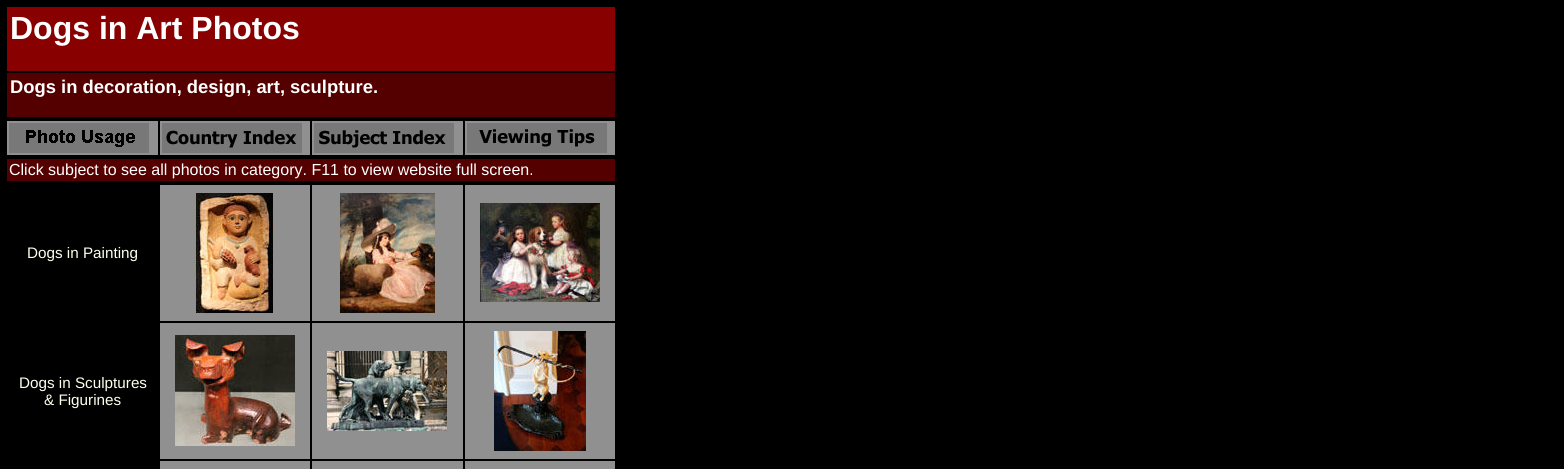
#include <cairo.h>
#include <math.h>
#include <stddef.h>


static void picture(cairo_t *cr, const char *path, double x, double y, double w, double h) {
    cairo_surface_t *image = cairo_image_surface_create_from_png(path);
    cairo_save(cr);
    cairo_set_source_surface(cr, image, x, y);
    cairo_rectangle(cr, x, y, w, h);
    cairo_fill(cr);
    cairo_restore(cr);
    cairo_surface_destroy(image);
}

int main(void) {
    cairo_surface_t *surface = cairo_image_surface_create(CAIRO_FORMAT_RGB24, 1564, 469);
    cairo_t *cr = cairo_create(surface);
    cairo_font_options_t *options = cairo_font_options_create();
    cairo_font_options_set_hint_metrics(options, CAIRO_HINT_METRICS_OFF);
    cairo_font_options_set_hint_style(options, CAIRO_HINT_STYLE_NONE);
    cairo_set_font_options(cr, options);
    cairo_set_miter_limit(cr, 4);
    cairo_set_source_rgb(cr, 0, 0, 0);
    cairo_paint(cr);
    cairo_set_source_rgb(cr, 0.533, 0, 0);
    cairo_rectangle(cr, 7, 7, 608, 64);
    cairo_fill(cr);
    cairo_select_font_face(cr, "Liberation Sans", CAIRO_FONT_SLANT_NORMAL, CAIRO_FONT_WEIGHT_BOLD);
    cairo_set_font_size(cr, 32);
    cairo_set_source_rgb(cr, 1, 1, 1);
    cairo_move_to(cr, 10, 39);
    cairo_show_text(cr, "Dogs in Art Photos");
    cairo_set_source_rgb(cr, 0.333, 0, 0);
    cairo_rectangle(cr, 7, 73, 608, 44);
    cairo_fill(cr);
    cairo_set_font_size(cr, 18.4);
    cairo_set_source_rgb(cr, 1, 1, 1);
    cairo_move_to(cr, 10, 93);
    cairo_show_text(cr, "Dogs in decoration, design, art, sculpture.");
    cairo_set_source_rgb(cr, 0.565, 0.565, 0.565);
    cairo_rectangle(cr, 7, 121, 608, 34);
    cairo_fill(cr);
    picture(cr, "img1.png", 9, 123, 140, 30);
    cairo_set_source_rgb(cr, 0, 0, 0);
    cairo_rectangle(cr, 158, 119, 2, 38);
    cairo_fill(cr);
    picture(cr, "img2.png", 162, 123, 140, 30);
    cairo_rectangle(cr, 310, 119, 2, 38);
    cairo_fill(cr);
    picture(cr, "img3.png", 314, 123, 140, 30);
    cairo_rectangle(cr, 463, 119, 2, 38);
    cairo_fill(cr);
    picture(cr, "img4.png", 467, 123, 140, 30);
    cairo_set_source_rgb(cr, 0.333, 0, 0);
    cairo_rectangle(cr, 7, 159, 608, 22);
    cairo_fill(cr);
    cairo_select_font_face(cr, "Liberation Sans", CAIRO_FONT_SLANT_NORMAL, CAIRO_FONT_WEIGHT_NORMAL);
    cairo_set_font_size(cr, 16);
    cairo_set_source_rgb(cr, 1, 1, 1);
    cairo_move_to(cr, 9, 175);
    cairo_show_text(cr, "Click subject to see all photos in category. F11 to view website full screen.");
    cairo_set_source_rgb(cr, 0.565, 0.565, 0.565);
    cairo_rectangle(cr, 160, 185, 455, 284);
    cairo_fill(cr);
    cairo_set_font_size(cr, 15.25);
    cairo_set_source_rgb(cr, 1, 1, 0.933);
    cairo_move_to(cr, 27, 258);
    cairo_show_text(cr, "Dogs in Painting");
    picture(cr, "img5.png", 196, 193, 77, 120);
    cairo_set_source_rgb(cr, 0, 0, 0);
    cairo_rectangle(cr, 463, 321, 154, 2);
    cairo_fill(cr);
    cairo_rectangle(cr, 463, 459, 154, 2);
    cairo_fill(cr);
    cairo_rectangle(cr, 463, 459, 2, 10);
    cairo_fill(cr);
    cairo_rectangle(cr, 310, 459, 155, 2);
    cairo_fill(cr);
    cairo_rectangle(cr, 463, 321, 2, 140);
    cairo_fill(cr);
    cairo_rectangle(cr, 310, 321, 155, 2);
    cairo_fill(cr);
    cairo_rectangle(cr, 310, 459, 2, 10);
    cairo_fill(cr);
    cairo_rectangle(cr, 158, 459, 154, 2);
    cairo_fill(cr);
    cairo_rectangle(cr, 310, 321, 2, 140);
    cairo_fill(cr);
    cairo_rectangle(cr, 158, 321, 154, 2);
    cairo_fill(cr);
    cairo_rectangle(cr, 310, 183, 2, 140);
    cairo_fill(cr);
    picture(cr, "img6.png", 340, 193, 95, 120);
    cairo_rectangle(cr, 463, 183, 2, 140);
    cairo_fill(cr);
    picture(cr, "img7.png", 480, 203, 120, 99);
    cairo_set_source_rgb(cr, 1, 1, 0.933);
    cairo_move_to(cr, 19, 388);
    cairo_show_text(cr, "Dogs in Sculptures");
    cairo_move_to(cr, 44, 405);
    cairo_show_text(cr, "& Figurines");
    picture(cr, "img8.png", 175, 335, 120, 111);
    picture(cr, "img9.png", 327, 351, 120, 80);
    picture(cr, "img10.png", 494, 331, 92, 120);
    cairo_surface_write_to_png(surface, "page.png");
    cairo_font_options_destroy(options);
    cairo_destroy(cr);
    cairo_surface_destroy(surface);
    return 0;
}
